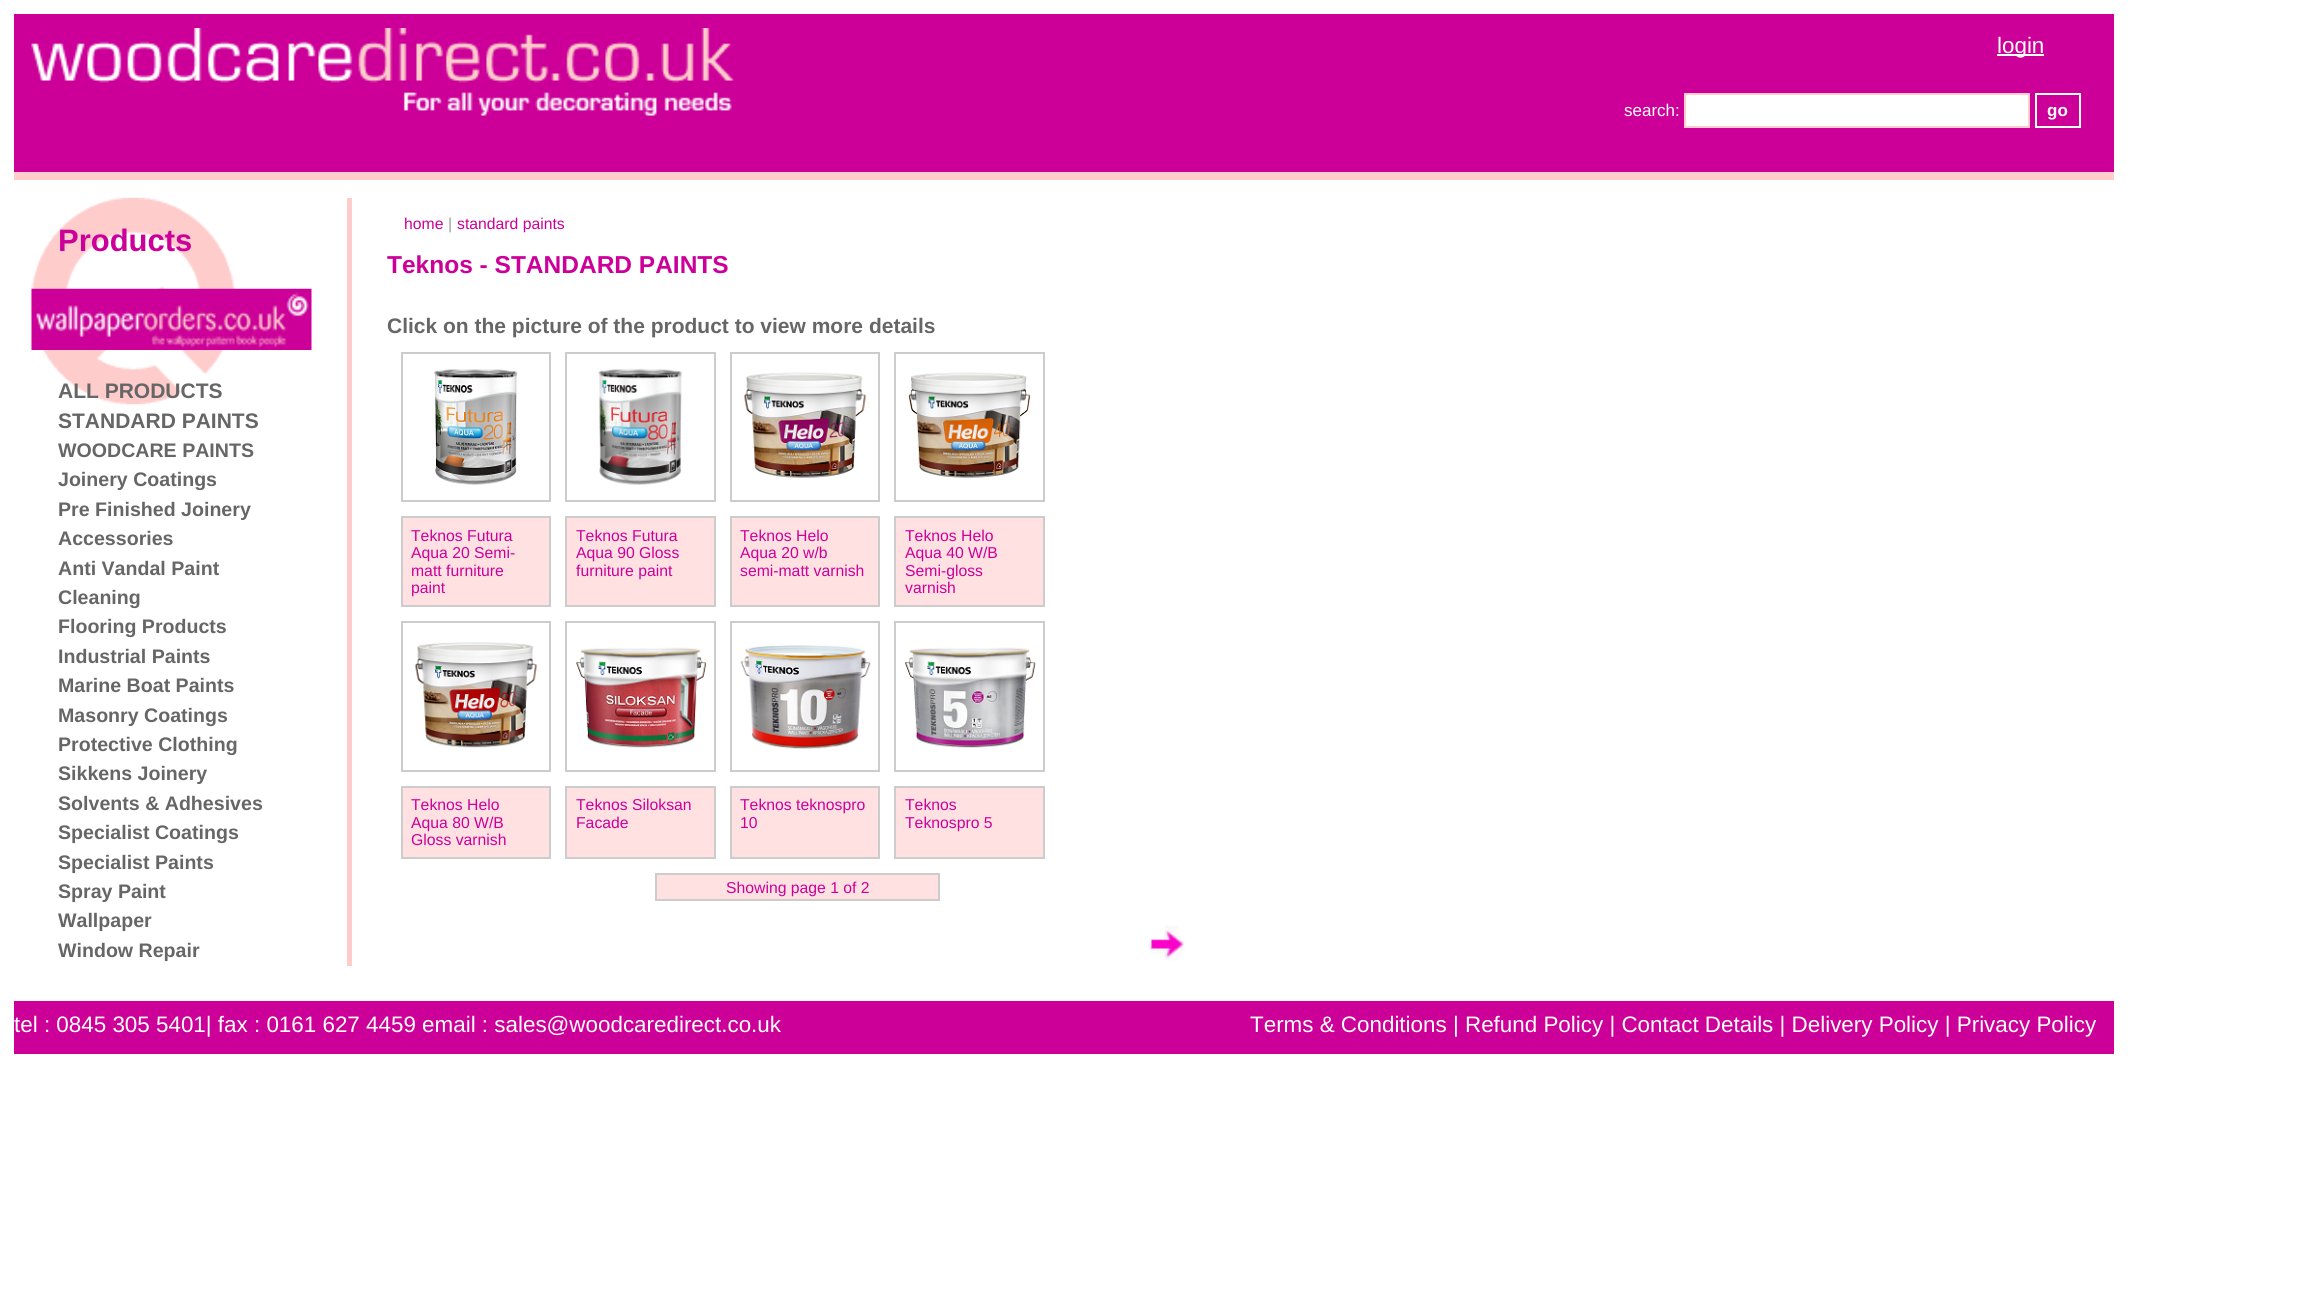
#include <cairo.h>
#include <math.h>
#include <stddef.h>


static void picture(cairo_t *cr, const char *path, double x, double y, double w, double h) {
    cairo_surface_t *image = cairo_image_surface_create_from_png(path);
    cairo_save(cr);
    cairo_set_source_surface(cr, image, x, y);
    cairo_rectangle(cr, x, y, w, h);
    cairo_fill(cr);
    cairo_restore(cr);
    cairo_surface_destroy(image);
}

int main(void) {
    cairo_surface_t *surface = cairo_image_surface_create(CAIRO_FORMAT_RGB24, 2305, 1300);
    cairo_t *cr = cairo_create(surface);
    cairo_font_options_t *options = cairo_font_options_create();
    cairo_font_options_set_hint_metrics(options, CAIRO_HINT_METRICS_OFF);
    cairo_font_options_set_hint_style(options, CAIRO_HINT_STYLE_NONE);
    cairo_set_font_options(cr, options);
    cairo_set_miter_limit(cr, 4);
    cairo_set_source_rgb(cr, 1, 1, 1);
    cairo_paint(cr);
    cairo_set_source_rgb(cr, 0.8, 0, 0.6);
    cairo_rectangle(cr, 14, 14, 2100, 158);
    cairo_fill(cr);
    cairo_set_source_rgb(cr, 1, 0.8, 0.8);
    cairo_rectangle(cr, 14, 172, 2100, 8);
    cairo_fill(cr);
    picture(cr, "img1.png", 31, 28, 703, 88);
    cairo_set_source_rgb(cr, 1, 1, 1);
    cairo_rectangle(cr, 1997, 54, 47, 2);
    cairo_fill(cr);
    cairo_select_font_face(cr, "Liberation Sans", CAIRO_FONT_SLANT_NORMAL, CAIRO_FONT_WEIGHT_NORMAL);
    cairo_set_font_size(cr, 22.4);
    cairo_move_to(cr, 1997, 53);
    cairo_show_text(cr, "login");
    cairo_set_font_size(cr, 17);
    cairo_move_to(cr, 1624, 116);
    cairo_show_text(cr, "search:");
    cairo_rectangle(cr, 1685, 94, 344, 33);
    cairo_fill_preserve(cr);
    cairo_set_source_rgb(cr, 1, 0.8, 0.8);
    cairo_stroke(cr);
    cairo_rectangle(cr, 2036, 94, 44, 33);
    cairo_set_source_rgb(cr, 1, 1, 1);
    cairo_stroke(cr);
    cairo_select_font_face(cr, "Liberation Sans", CAIRO_FONT_SLANT_NORMAL, CAIRO_FONT_WEIGHT_BOLD);
    cairo_move_to(cr, 2047, 116);
    cairo_show_text(cr, "go");
    picture(cr, "img2.png", 31, 197, 204, 208);
    cairo_set_source_rgb(cr, 1, 0.8, 0.8);
    cairo_rectangle(cr, 347, 198, 5, 768);
    cairo_fill(cr);
    cairo_set_font_size(cr, 31);
    cairo_set_source_rgb(cr, 0.8, 0, 0.6);
    cairo_move_to(cr, 58, 251);
    cairo_show_text(cr, "Products");
    picture(cr, "img3.png", 31, 288, 281, 62);
    cairo_set_font_size(cr, 21);
    cairo_set_source_rgb(cr, 0.4, 0.4, 0.4);
    cairo_move_to(cr, 58, 398);
    cairo_show_text(cr, "ALL PRODUCTS");
    cairo_move_to(cr, 58, 428);
    cairo_show_text(cr, "STANDARD PAINTS");
    cairo_set_font_size(cr, 19.6);
    cairo_move_to(cr, 58, 457);
    cairo_show_text(cr, "WOODCARE PAINTS");
    cairo_move_to(cr, 58, 486);
    cairo_show_text(cr, "Joinery Coatings");
    cairo_move_to(cr, 58, 516);
    cairo_show_text(cr, "Pre Finished Joinery");
    cairo_move_to(cr, 58, 545);
    cairo_show_text(cr, "Accessories");
    cairo_move_to(cr, 58, 575);
    cairo_show_text(cr, "Anti Vandal Paint");
    cairo_move_to(cr, 58, 604);
    cairo_show_text(cr, "Cleaning");
    cairo_move_to(cr, 58, 633);
    cairo_show_text(cr, "Flooring Products");
    cairo_move_to(cr, 58, 663);
    cairo_show_text(cr, "Industrial Paints");
    cairo_move_to(cr, 58, 692);
    cairo_show_text(cr, "Marine Boat Paints");
    cairo_move_to(cr, 58, 722);
    cairo_show_text(cr, "Masonry Coatings");
    cairo_move_to(cr, 58, 751);
    cairo_show_text(cr, "Protective Clothing");
    cairo_move_to(cr, 58, 780);
    cairo_show_text(cr, "Sikkens Joinery");
    cairo_move_to(cr, 58, 810);
    cairo_show_text(cr, "Solvents & Adhesives");
    cairo_move_to(cr, 58, 839);
    cairo_show_text(cr, "Specialist Coatings");
    cairo_move_to(cr, 58, 869);
    cairo_show_text(cr, "Specialist Paints");
    cairo_move_to(cr, 58, 898);
    cairo_show_text(cr, "Spray Paint");
    cairo_move_to(cr, 58, 927);
    cairo_show_text(cr, "Wallpaper");
    cairo_move_to(cr, 58, 957);
    cairo_show_text(cr, "Window Repair");
    cairo_select_font_face(cr, "Liberation Sans", CAIRO_FONT_SLANT_NORMAL, CAIRO_FONT_WEIGHT_NORMAL);
    cairo_set_font_size(cr, 15.75);
    cairo_set_source_rgb(cr, 0.8, 0, 0.6);
    cairo_move_to(cr, 404, 229);
    cairo_show_text(cr, "home");
    cairo_set_source_rgb(cr, 0.6, 0.6, 0.6);
    cairo_move_to(cr, 448, 229);
    cairo_show_text(cr, "|");
    cairo_set_source_rgb(cr, 0.8, 0, 0.6);
    cairo_move_to(cr, 457, 229);
    cairo_show_text(cr, "standard paints");
    cairo_select_font_face(cr, "Liberation Sans", CAIRO_FONT_SLANT_NORMAL, CAIRO_FONT_WEIGHT_BOLD);
    cairo_set_font_size(cr, 24.5);
    cairo_move_to(cr, 387, 273);
    cairo_show_text(cr, "Teknos - STANDARD PAINTS");
    cairo_set_font_size(cr, 21);
    cairo_set_source_rgb(cr, 0.4, 0.4, 0.4);
    cairo_move_to(cr, 387, 333);
    cairo_show_text(cr, "Click on the picture of the product to view more details");
    cairo_rectangle(cr, 402, 353, 148, 148);
    cairo_set_source_rgb(cr, 0.8, 0.8, 0.8);
    cairo_stroke(cr);
    picture(cr, "img4.png", 434, 369, 84, 116);
    cairo_rectangle(cr, 566, 353, 149, 148);
    cairo_stroke(cr);
    picture(cr, "img5.png", 598, 368, 85, 117);
    cairo_rectangle(cr, 731, 353, 148, 148);
    cairo_stroke(cr);
    picture(cr, "img6.png", 743, 372, 124, 106);
    cairo_rectangle(cr, 895, 353, 149, 148);
    cairo_stroke(cr);
    picture(cr, "img7.png", 908, 372, 123, 106);
    cairo_set_source_rgb(cr, 1, 0.882, 0.882);
    cairo_rectangle(cr, 402, 517, 148, 89);
    cairo_fill_preserve(cr);
    cairo_set_source_rgb(cr, 0.8, 0.8, 0.8);
    cairo_stroke(cr);
    cairo_select_font_face(cr, "Liberation Sans", CAIRO_FONT_SLANT_NORMAL, CAIRO_FONT_WEIGHT_NORMAL);
    cairo_set_font_size(cr, 15.75);
    cairo_set_source_rgb(cr, 0.8, 0, 0.6);
    cairo_move_to(cr, 411, 541);
    cairo_show_text(cr, "Teknos Futura");
    cairo_move_to(cr, 411, 558);
    cairo_show_text(cr, "Aqua 20 Semi-");
    cairo_move_to(cr, 411, 576);
    cairo_show_text(cr, "matt furniture");
    cairo_move_to(cr, 411, 593);
    cairo_show_text(cr, "paint");
    cairo_set_source_rgb(cr, 1, 0.882, 0.882);
    cairo_rectangle(cr, 566, 517, 149, 89);
    cairo_fill_preserve(cr);
    cairo_set_source_rgb(cr, 0.8, 0.8, 0.8);
    cairo_stroke(cr);
    cairo_set_source_rgb(cr, 0.8, 0, 0.6);
    cairo_move_to(cr, 576, 541);
    cairo_show_text(cr, "Teknos Futura");
    cairo_move_to(cr, 576, 558);
    cairo_show_text(cr, "Aqua 90 Gloss");
    cairo_move_to(cr, 576, 576);
    cairo_show_text(cr, "furniture paint");
    cairo_set_source_rgb(cr, 1, 0.882, 0.882);
    cairo_rectangle(cr, 731, 517, 148, 89);
    cairo_fill_preserve(cr);
    cairo_set_source_rgb(cr, 0.8, 0.8, 0.8);
    cairo_stroke(cr);
    cairo_set_source_rgb(cr, 0.8, 0, 0.6);
    cairo_move_to(cr, 740, 541);
    cairo_show_text(cr, "Teknos Helo");
    cairo_move_to(cr, 740, 558);
    cairo_show_text(cr, "Aqua 20 w/b");
    cairo_move_to(cr, 740, 576);
    cairo_show_text(cr, "semi-matt varnish");
    cairo_set_source_rgb(cr, 1, 0.882, 0.882);
    cairo_rectangle(cr, 895, 517, 149, 89);
    cairo_fill_preserve(cr);
    cairo_set_source_rgb(cr, 0.8, 0.8, 0.8);
    cairo_stroke(cr);
    cairo_set_source_rgb(cr, 0.8, 0, 0.6);
    cairo_move_to(cr, 905, 541);
    cairo_show_text(cr, "Teknos Helo");
    cairo_move_to(cr, 905, 558);
    cairo_show_text(cr, "Aqua 40 W/B");
    cairo_move_to(cr, 905, 576);
    cairo_show_text(cr, "Semi-gloss");
    cairo_move_to(cr, 905, 593);
    cairo_show_text(cr, "varnish");
    cairo_rectangle(cr, 402, 622, 148, 149);
    cairo_set_source_rgb(cr, 0.8, 0.8, 0.8);
    cairo_stroke(cr);
    picture(cr, "img8.png", 414, 642, 124, 106);
    cairo_rectangle(cr, 566, 622, 149, 149);
    cairo_stroke(cr);
    picture(cr, "img9.png", 576, 647, 131, 101);
    cairo_rectangle(cr, 731, 622, 148, 149);
    cairo_stroke(cr);
    picture(cr, "img10.png", 740, 645, 131, 104);
    cairo_rectangle(cr, 895, 622, 149, 149);
    cairo_stroke(cr);
    picture(cr, "img11.png", 905, 647, 131, 101);
    cairo_set_source_rgb(cr, 1, 0.882, 0.882);
    cairo_rectangle(cr, 402, 787, 148, 71);
    cairo_fill_preserve(cr);
    cairo_set_source_rgb(cr, 0.8, 0.8, 0.8);
    cairo_stroke(cr);
    cairo_set_source_rgb(cr, 0.8, 0, 0.6);
    cairo_move_to(cr, 411, 810);
    cairo_show_text(cr, "Teknos Helo");
    cairo_move_to(cr, 411, 828);
    cairo_show_text(cr, "Aqua 80 W/B");
    cairo_move_to(cr, 411, 845);
    cairo_show_text(cr, "Gloss varnish");
    cairo_set_source_rgb(cr, 1, 0.882, 0.882);
    cairo_rectangle(cr, 566, 787, 149, 71);
    cairo_fill_preserve(cr);
    cairo_set_source_rgb(cr, 0.8, 0.8, 0.8);
    cairo_stroke(cr);
    cairo_set_source_rgb(cr, 0.8, 0, 0.6);
    cairo_move_to(cr, 576, 810);
    cairo_show_text(cr, "Teknos Siloksan");
    cairo_move_to(cr, 576, 828);
    cairo_show_text(cr, "Facade");
    cairo_set_source_rgb(cr, 1, 0.882, 0.882);
    cairo_rectangle(cr, 731, 787, 148, 71);
    cairo_fill_preserve(cr);
    cairo_set_source_rgb(cr, 0.8, 0.8, 0.8);
    cairo_stroke(cr);
    cairo_set_source_rgb(cr, 0.8, 0, 0.6);
    cairo_move_to(cr, 740, 810);
    cairo_show_text(cr, "Teknos teknospro");
    cairo_move_to(cr, 740, 828);
    cairo_show_text(cr, "10");
    cairo_set_source_rgb(cr, 1, 0.882, 0.882);
    cairo_rectangle(cr, 895, 787, 149, 71);
    cairo_fill_preserve(cr);
    cairo_set_source_rgb(cr, 0.8, 0.8, 0.8);
    cairo_stroke(cr);
    cairo_set_source_rgb(cr, 0.8, 0, 0.6);
    cairo_move_to(cr, 905, 810);
    cairo_show_text(cr, "Teknos");
    cairo_move_to(cr, 905, 828);
    cairo_show_text(cr, "Teknospro 5");
    cairo_set_source_rgb(cr, 1, 0.882, 0.882);
    cairo_rectangle(cr, 656, 874, 283, 26);
    cairo_fill_preserve(cr);
    cairo_set_source_rgb(cr, 0.8, 0.8, 0.8);
    cairo_stroke(cr);
    cairo_set_source_rgb(cr, 0.8, 0, 0.6);
    cairo_move_to(cr, 726, 893);
    cairo_show_text(cr, "Showing page 1 of 2");
    picture(cr, "img12.png", 1149, 925, 36, 36);
    cairo_rectangle(cr, 14, 1001, 2100, 53);
    cairo_fill(cr);
    cairo_set_font_size(cr, 22.4);
    cairo_set_source_rgb(cr, 1, 1, 1);
    cairo_move_to(cr, 14, 1032);
    cairo_show_text(cr, "tel : 0845 305 5401| fax : 0161 627 4459 email : sales@woodcaredirect.co.uk");
    cairo_move_to(cr, 1250, 1032);
    cairo_show_text(cr, "Terms & Conditions | Refund Policy | Contact Details | Delivery Policy | Privacy Policy");
    cairo_surface_write_to_png(surface, "page.png");
    cairo_font_options_destroy(options);
    cairo_destroy(cr);
    cairo_surface_destroy(surface);
    return 0;
}
